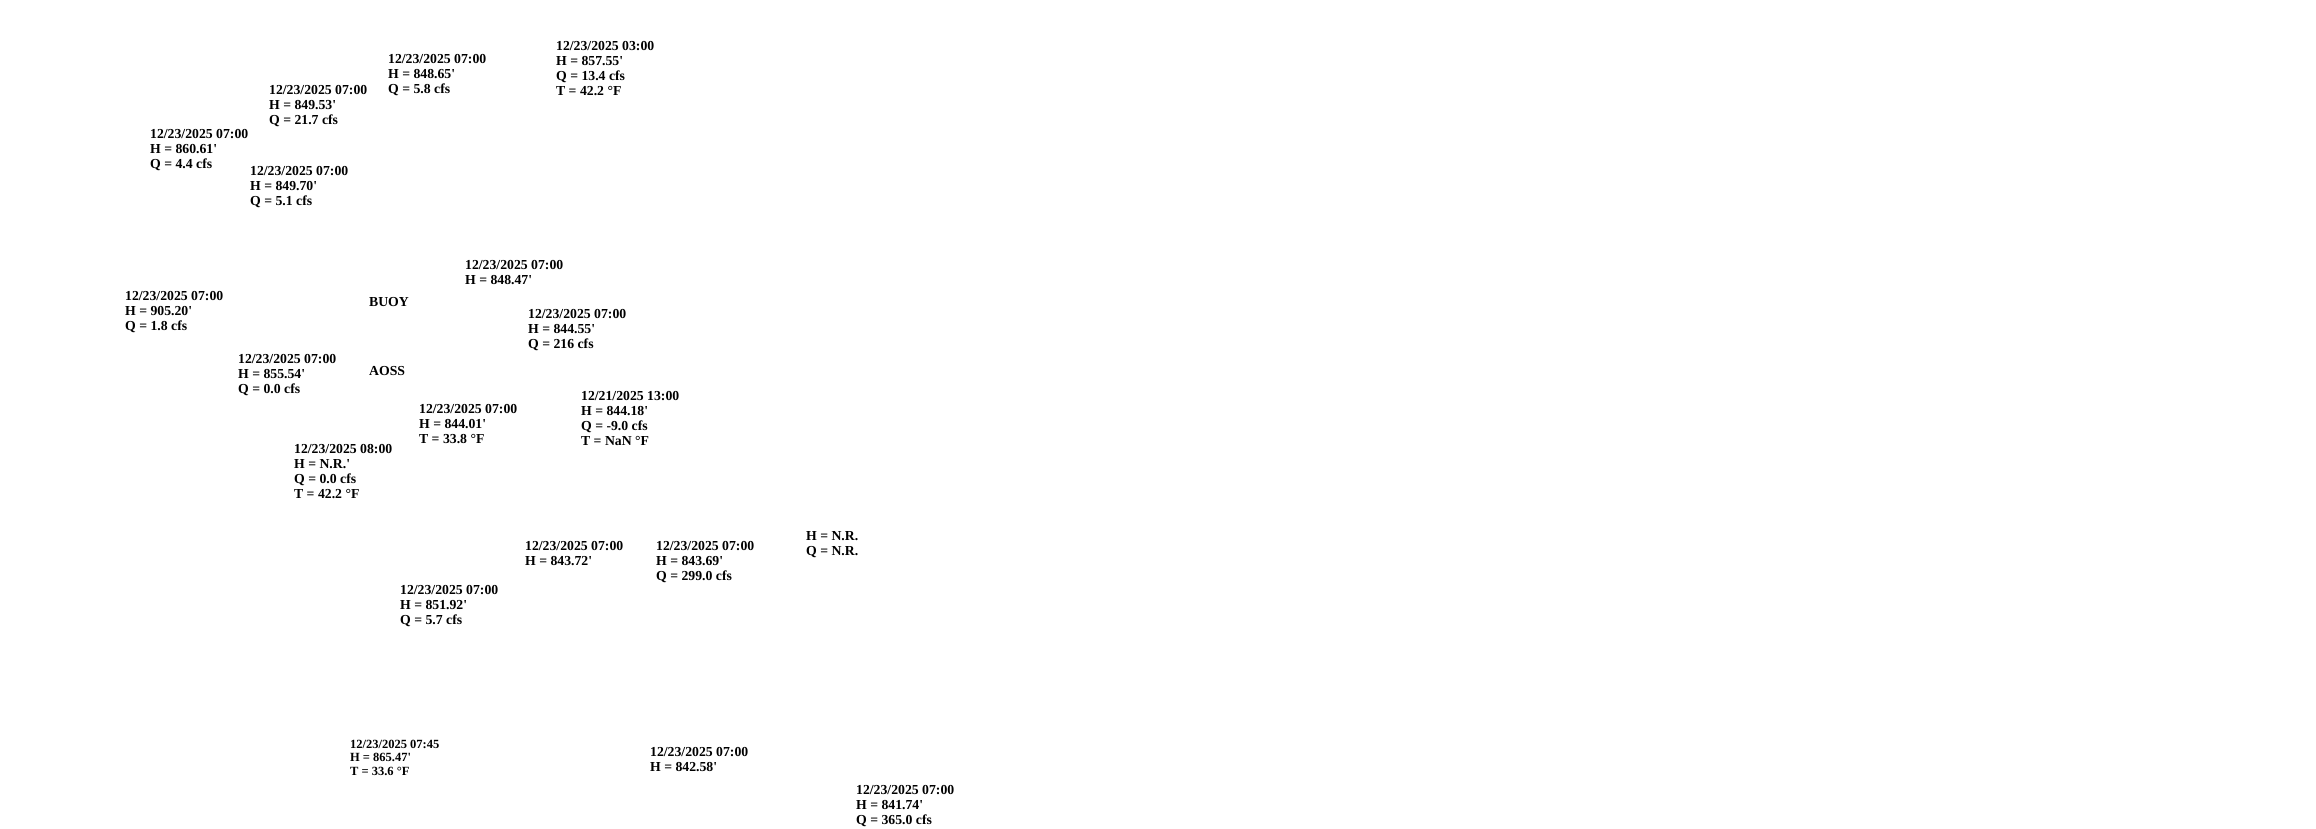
#include <cairo.h>
#include <math.h>
#include <stddef.h>


int main(void) {
    cairo_surface_t *surface = cairo_image_surface_create(CAIRO_FORMAT_RGB24, 2316, 829);
    cairo_t *cr = cairo_create(surface);
    cairo_font_options_t *options = cairo_font_options_create();
    cairo_font_options_set_hint_metrics(options, CAIRO_HINT_METRICS_OFF);
    cairo_font_options_set_hint_style(options, CAIRO_HINT_STYLE_NONE);
    cairo_set_font_options(cr, options);
    cairo_set_miter_limit(cr, 4);
    cairo_set_source_rgb(cr, 1, 1, 1);
    cairo_paint(cr);
    cairo_select_font_face(cr, "Liberation Serif", CAIRO_FONT_SLANT_NORMAL, CAIRO_FONT_WEIGHT_BOLD);
    cairo_set_font_size(cr, 13.75);
    cairo_set_source_rgb(cr, 0, 0, 0);
    cairo_move_to(cr, 388, 63);
    cairo_show_text(cr, "12/23/2025 07:00");
    cairo_move_to(cr, 388, 78);
    cairo_show_text(cr, "H = 848.65'");
    cairo_move_to(cr, 388, 93);
    cairo_show_text(cr, "Q = 5.8 cfs");
    cairo_move_to(cr, 556, 50);
    cairo_show_text(cr, "12/23/2025 03:00");
    cairo_move_to(cr, 556, 65);
    cairo_show_text(cr, "H = 857.55'");
    cairo_move_to(cr, 556, 80);
    cairo_show_text(cr, "Q = 13.4 cfs");
    cairo_move_to(cr, 556, 95);
    cairo_show_text(cr, "T = 42.2 °F");
    cairo_move_to(cr, 269, 94);
    cairo_show_text(cr, "12/23/2025 07:00");
    cairo_move_to(cr, 269, 109);
    cairo_show_text(cr, "H = 849.53'");
    cairo_move_to(cr, 269, 124);
    cairo_show_text(cr, "Q = 21.7 cfs");
    cairo_move_to(cr, 150, 138);
    cairo_show_text(cr, "12/23/2025 07:00");
    cairo_move_to(cr, 150, 153);
    cairo_show_text(cr, "H = 860.61'");
    cairo_move_to(cr, 150, 168);
    cairo_show_text(cr, "Q = 4.4 cfs");
    cairo_move_to(cr, 250, 175);
    cairo_show_text(cr, "12/23/2025 07:00");
    cairo_move_to(cr, 250, 190);
    cairo_show_text(cr, "H = 849.70'");
    cairo_move_to(cr, 250, 205);
    cairo_show_text(cr, "Q = 5.1 cfs");
    cairo_move_to(cr, 465, 269);
    cairo_show_text(cr, "12/23/2025 07:00");
    cairo_move_to(cr, 465, 284);
    cairo_show_text(cr, "H = 848.47'");
    cairo_move_to(cr, 125, 300);
    cairo_show_text(cr, "12/23/2025 07:00");
    cairo_move_to(cr, 125, 315);
    cairo_show_text(cr, "H = 905.20'");
    cairo_move_to(cr, 125, 330);
    cairo_show_text(cr, "Q = 1.8 cfs");
    cairo_move_to(cr, 369, 306);
    cairo_show_text(cr, "BUOY");
    cairo_move_to(cr, 528, 318);
    cairo_show_text(cr, "12/23/2025 07:00");
    cairo_move_to(cr, 528, 333);
    cairo_show_text(cr, "H = 844.55'");
    cairo_move_to(cr, 528, 348);
    cairo_show_text(cr, "Q = 216 cfs");
    cairo_move_to(cr, 238, 363);
    cairo_show_text(cr, "12/23/2025 07:00");
    cairo_move_to(cr, 238, 378);
    cairo_show_text(cr, "H = 855.54'");
    cairo_move_to(cr, 238, 393);
    cairo_show_text(cr, "Q = 0.0 cfs");
    cairo_move_to(cr, 369, 375);
    cairo_show_text(cr, "AOSS");
    cairo_move_to(cr, 419, 413);
    cairo_show_text(cr, "12/23/2025 07:00");
    cairo_move_to(cr, 419, 428);
    cairo_show_text(cr, "H = 844.01'");
    cairo_move_to(cr, 419, 443);
    cairo_show_text(cr, "T = 33.8 °F");
    cairo_move_to(cr, 581, 400);
    cairo_show_text(cr, "12/21/2025 13:00");
    cairo_move_to(cr, 581, 415);
    cairo_show_text(cr, "H = 844.18'");
    cairo_move_to(cr, 581, 430);
    cairo_show_text(cr, "Q = -9.0 cfs");
    cairo_move_to(cr, 581, 445);
    cairo_show_text(cr, "T = NaN °F");
    cairo_move_to(cr, 294, 453);
    cairo_show_text(cr, "12/23/2025 08:00");
    cairo_move_to(cr, 294, 468);
    cairo_show_text(cr, "H = N.R.'");
    cairo_move_to(cr, 294, 483);
    cairo_show_text(cr, "Q = 0.0 cfs");
    cairo_move_to(cr, 294, 498);
    cairo_show_text(cr, "T = 42.2 °F");
    cairo_move_to(cr, 525, 550);
    cairo_show_text(cr, "12/23/2025 07:00");
    cairo_move_to(cr, 525, 565);
    cairo_show_text(cr, "H = 843.72'");
    cairo_move_to(cr, 656, 550);
    cairo_show_text(cr, "12/23/2025 07:00");
    cairo_move_to(cr, 656, 565);
    cairo_show_text(cr, "H = 843.69'");
    cairo_move_to(cr, 656, 580);
    cairo_show_text(cr, "Q = 299.0 cfs");
    cairo_move_to(cr, 806, 540);
    cairo_show_text(cr, "H = N.R.");
    cairo_move_to(cr, 806, 555);
    cairo_show_text(cr, "Q = N.R.");
    cairo_move_to(cr, 400, 594);
    cairo_show_text(cr, "12/23/2025 07:00");
    cairo_move_to(cr, 400, 609);
    cairo_show_text(cr, "H = 851.92'");
    cairo_move_to(cr, 400, 624);
    cairo_show_text(cr, "Q = 5.7 cfs");
    cairo_set_font_size(cr, 12.5);
    cairo_move_to(cr, 350, 748);
    cairo_show_text(cr, "12/23/2025 07:45");
    cairo_move_to(cr, 350, 761);
    cairo_show_text(cr, "H = 865.47'");
    cairo_move_to(cr, 350, 775);
    cairo_show_text(cr, "T = 33.6 °F");
    cairo_set_font_size(cr, 13.75);
    cairo_move_to(cr, 650, 756);
    cairo_show_text(cr, "12/23/2025 07:00");
    cairo_move_to(cr, 650, 771);
    cairo_show_text(cr, "H = 842.58'");
    cairo_move_to(cr, 856, 794);
    cairo_show_text(cr, "12/23/2025 07:00");
    cairo_move_to(cr, 856, 809);
    cairo_show_text(cr, "H = 841.74'");
    cairo_move_to(cr, 856, 824);
    cairo_show_text(cr, "Q = 365.0 cfs");
    cairo_surface_write_to_png(surface, "page.png");
    cairo_font_options_destroy(options);
    cairo_destroy(cr);
    cairo_surface_destroy(surface);
    return 0;
}
